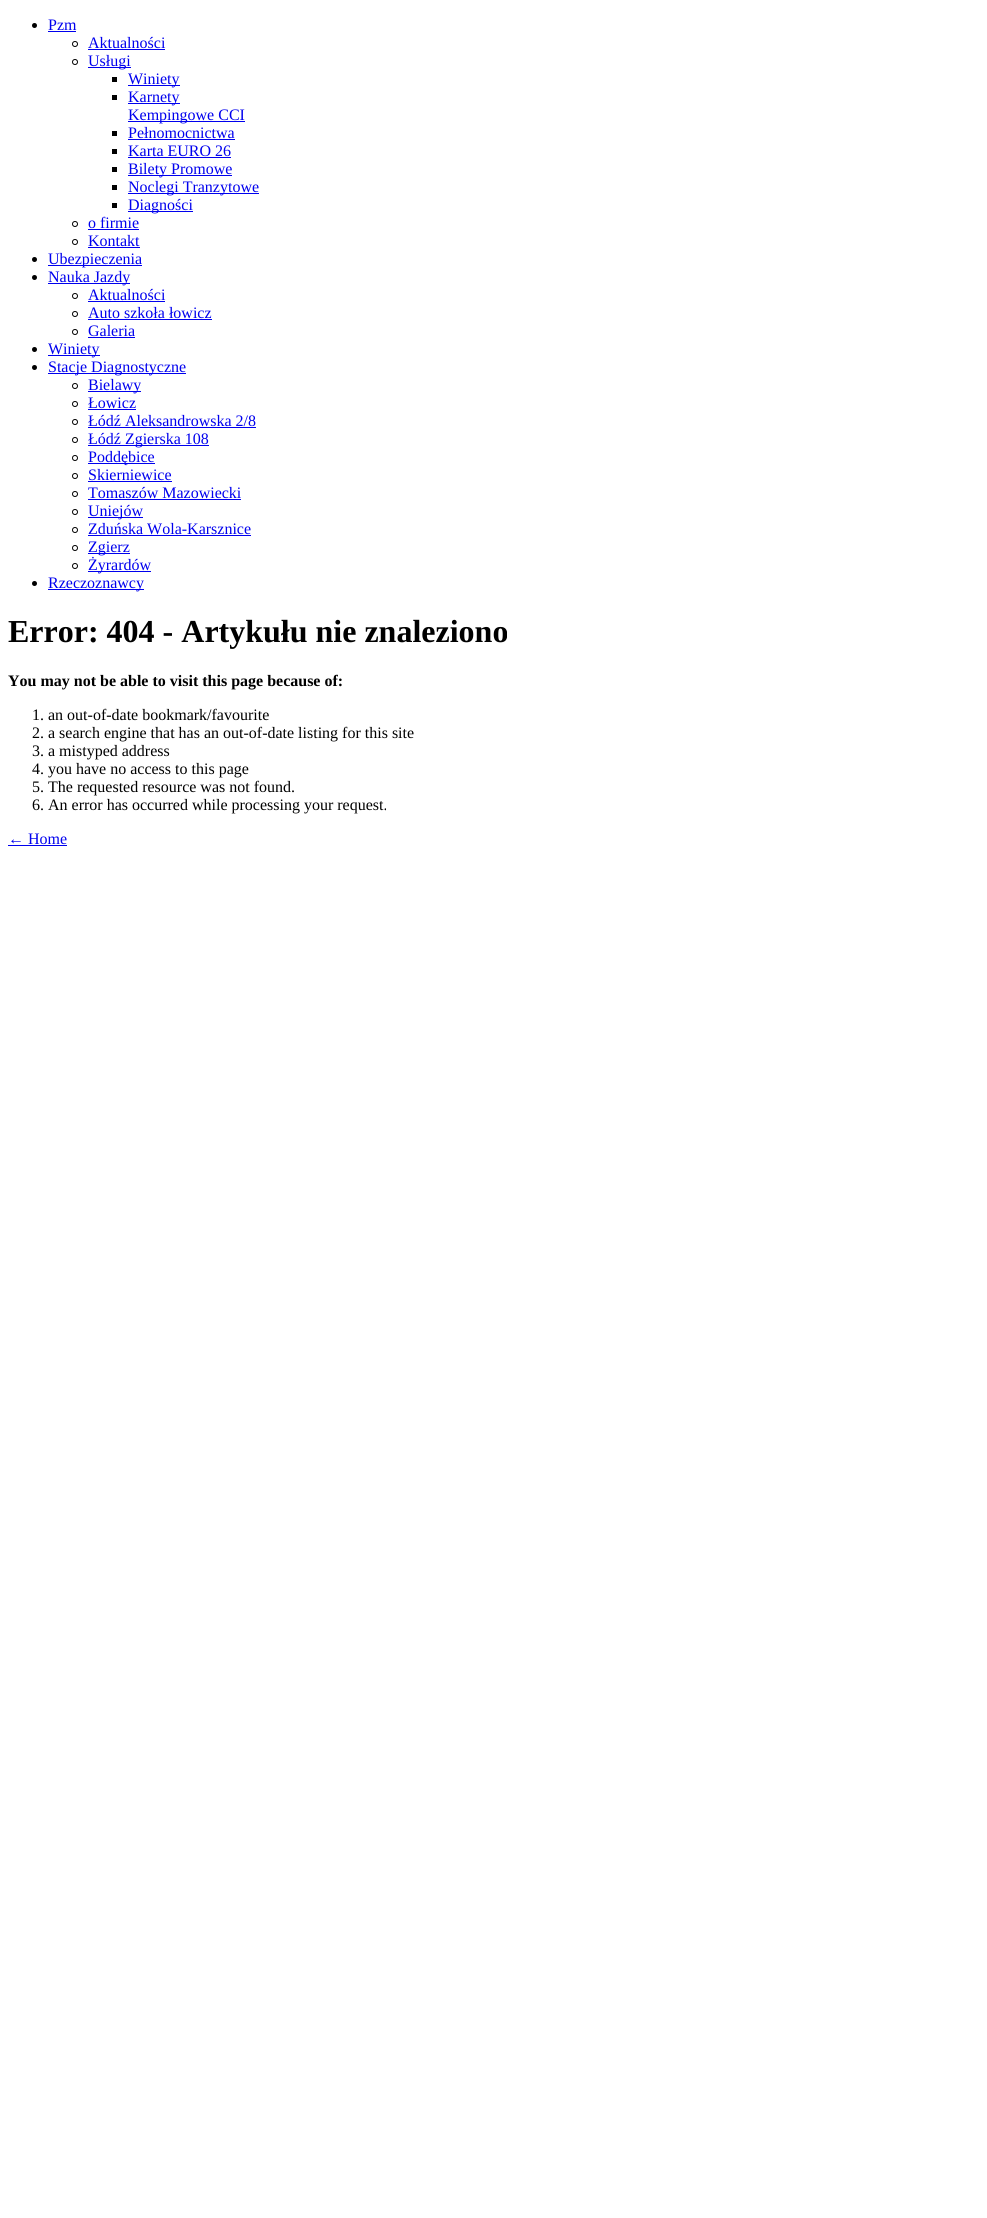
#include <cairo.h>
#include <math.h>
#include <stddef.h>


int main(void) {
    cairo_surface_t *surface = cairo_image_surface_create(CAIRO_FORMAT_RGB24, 987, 2218);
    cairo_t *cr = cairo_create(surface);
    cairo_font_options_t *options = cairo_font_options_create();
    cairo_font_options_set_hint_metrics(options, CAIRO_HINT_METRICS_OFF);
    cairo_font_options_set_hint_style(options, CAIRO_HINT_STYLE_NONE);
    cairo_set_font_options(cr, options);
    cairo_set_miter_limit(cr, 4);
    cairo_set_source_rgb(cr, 1, 1, 1);
    cairo_paint(cr);
    cairo_set_source_rgb(cr, 0, 0, 0);
    cairo_arc(cr, 34.5, 25.5, 2.5, 0, 2 * M_PI);
    cairo_fill(cr);
    cairo_select_font_face(cr, "Liberation Serif", CAIRO_FONT_SLANT_NORMAL, CAIRO_FONT_WEIGHT_NORMAL);
    cairo_set_font_size(cr, 16);
    cairo_set_source_rgb(cr, 0, 0, 0.933);
    cairo_move_to(cr, 48, 30);
    cairo_show_text(cr, "Pzm");
    cairo_rectangle(cr, 48, 31, 28, 1);
    cairo_fill(cr);
    cairo_arc(cr, 75, 44, 2.5, 0, 2 * M_PI);
    cairo_set_source_rgb(cr, 0, 0, 0);
    cairo_set_line_width(cr, 1);
    cairo_stroke(cr);
    cairo_set_source_rgb(cr, 0, 0, 0.933);
    cairo_move_to(cr, 88, 48);
    cairo_show_text(cr, "Aktualności");
    cairo_rectangle(cr, 88, 49, 77, 1);
    cairo_fill(cr);
    cairo_arc(cr, 75, 62, 2.5, 0, 2 * M_PI);
    cairo_set_source_rgb(cr, 0, 0, 0);
    cairo_stroke(cr);
    cairo_set_source_rgb(cr, 0, 0, 0.933);
    cairo_rectangle(cr, 88, 67, 43, 1);
    cairo_fill(cr);
    cairo_move_to(cr, 88, 66);
    cairo_show_text(cr, "Usługi");
    cairo_set_source_rgb(cr, 0, 0, 0);
    cairo_rectangle(cr, 112, 77, 5, 5);
    cairo_fill(cr);
    cairo_set_source_rgb(cr, 0, 0, 0.933);
    cairo_rectangle(cr, 128, 85, 52, 1);
    cairo_fill(cr);
    cairo_move_to(cr, 128, 84);
    cairo_show_text(cr, "Winiety");
    cairo_set_source_rgb(cr, 0, 0, 0);
    cairo_rectangle(cr, 112, 95, 5, 5);
    cairo_fill(cr);
    cairo_set_source_rgb(cr, 0, 0, 0.933);
    cairo_rectangle(cr, 128, 103, 52, 1);
    cairo_fill(cr);
    cairo_move_to(cr, 128, 102);
    cairo_show_text(cr, "Karnety");
    cairo_rectangle(cr, 128, 121, 117, 1);
    cairo_fill(cr);
    cairo_move_to(cr, 128, 120);
    cairo_show_text(cr, "Kempingowe CCI");
    cairo_set_source_rgb(cr, 0, 0, 0);
    cairo_rectangle(cr, 112, 131, 5, 5);
    cairo_fill(cr);
    cairo_set_source_rgb(cr, 0, 0, 0.933);
    cairo_move_to(cr, 128, 138);
    cairo_show_text(cr, "Pełnomocnictwa");
    cairo_rectangle(cr, 128, 139, 107, 1);
    cairo_fill(cr);
    cairo_set_source_rgb(cr, 0, 0, 0);
    cairo_rectangle(cr, 112, 149, 5, 5);
    cairo_fill(cr);
    cairo_set_source_rgb(cr, 0, 0, 0.933);
    cairo_move_to(cr, 128, 156);
    cairo_show_text(cr, "Karta EURO 26");
    cairo_rectangle(cr, 128, 157, 103, 1);
    cairo_fill(cr);
    cairo_set_source_rgb(cr, 0, 0, 0);
    cairo_rectangle(cr, 112, 167, 5, 5);
    cairo_fill(cr);
    cairo_set_source_rgb(cr, 0, 0, 0.933);
    cairo_rectangle(cr, 128, 175, 104, 1);
    cairo_fill(cr);
    cairo_move_to(cr, 128, 174);
    cairo_show_text(cr, "Bilety Promowe");
    cairo_set_source_rgb(cr, 0, 0, 0);
    cairo_rectangle(cr, 112, 185, 5, 5);
    cairo_fill(cr);
    cairo_set_source_rgb(cr, 0, 0, 0.933);
    cairo_rectangle(cr, 128, 193, 131, 1);
    cairo_fill(cr);
    cairo_move_to(cr, 128, 192);
    cairo_show_text(cr, "Noclegi Tranzytowe");
    cairo_set_source_rgb(cr, 0, 0, 0);
    cairo_rectangle(cr, 112, 203, 5, 5);
    cairo_fill(cr);
    cairo_set_source_rgb(cr, 0, 0, 0.933);
    cairo_rectangle(cr, 128, 211, 65, 1);
    cairo_fill(cr);
    cairo_move_to(cr, 128, 210);
    cairo_show_text(cr, "Diagności");
    cairo_new_path(cr);
    cairo_arc(cr, 75, 224, 2.5, 0, 2 * M_PI);
    cairo_set_source_rgb(cr, 0, 0, 0);
    cairo_stroke(cr);
    cairo_set_source_rgb(cr, 0, 0, 0.933);
    cairo_move_to(cr, 88, 228);
    cairo_show_text(cr, "o firmie");
    cairo_rectangle(cr, 88, 229, 51, 1);
    cairo_fill(cr);
    cairo_arc(cr, 75, 242, 2.5, 0, 2 * M_PI);
    cairo_set_source_rgb(cr, 0, 0, 0);
    cairo_stroke(cr);
    cairo_set_source_rgb(cr, 0, 0, 0.933);
    cairo_move_to(cr, 88, 246);
    cairo_show_text(cr, "Kontakt");
    cairo_rectangle(cr, 88, 247, 52, 1);
    cairo_fill(cr);
    cairo_set_source_rgb(cr, 0, 0, 0);
    cairo_arc(cr, 34.5, 259.5, 2.5, 0, 2 * M_PI);
    cairo_fill(cr);
    cairo_set_source_rgb(cr, 0, 0, 0.933);
    cairo_rectangle(cr, 48, 265, 94, 1);
    cairo_fill(cr);
    cairo_move_to(cr, 48, 264);
    cairo_show_text(cr, "Ubezpieczenia");
    cairo_set_source_rgb(cr, 0, 0, 0);
    cairo_new_path(cr);
    cairo_arc(cr, 34.5, 277.5, 2.5, 0, 2 * M_PI);
    cairo_fill(cr);
    cairo_set_source_rgb(cr, 0, 0, 0.933);
    cairo_rectangle(cr, 48, 283, 82, 1);
    cairo_fill(cr);
    cairo_move_to(cr, 48, 282);
    cairo_show_text(cr, "Nauka Jazdy");
    cairo_new_path(cr);
    cairo_arc(cr, 75, 296, 2.5, 0, 2 * M_PI);
    cairo_set_source_rgb(cr, 0, 0, 0);
    cairo_stroke(cr);
    cairo_set_source_rgb(cr, 0, 0, 0.933);
    cairo_move_to(cr, 88, 300);
    cairo_show_text(cr, "Aktualności");
    cairo_rectangle(cr, 88, 301, 77, 1);
    cairo_fill(cr);
    cairo_arc(cr, 75, 314, 2.5, 0, 2 * M_PI);
    cairo_set_source_rgb(cr, 0, 0, 0);
    cairo_stroke(cr);
    cairo_set_source_rgb(cr, 0, 0, 0.933);
    cairo_move_to(cr, 88, 318);
    cairo_show_text(cr, "Auto szkoła łowicz");
    cairo_rectangle(cr, 88, 319, 124, 1);
    cairo_fill(cr);
    cairo_arc(cr, 75, 332, 2.5, 0, 2 * M_PI);
    cairo_set_source_rgb(cr, 0, 0, 0);
    cairo_stroke(cr);
    cairo_set_source_rgb(cr, 0, 0, 0.933);
    cairo_move_to(cr, 88, 336);
    cairo_show_text(cr, "Galeria");
    cairo_rectangle(cr, 88, 337, 47, 1);
    cairo_fill(cr);
    cairo_set_source_rgb(cr, 0, 0, 0);
    cairo_arc(cr, 34.5, 349.5, 2.5, 0, 2 * M_PI);
    cairo_fill(cr);
    cairo_set_source_rgb(cr, 0, 0, 0.933);
    cairo_rectangle(cr, 48, 355, 52, 1);
    cairo_fill(cr);
    cairo_move_to(cr, 48, 354);
    cairo_show_text(cr, "Winiety");
    cairo_set_source_rgb(cr, 0, 0, 0);
    cairo_new_path(cr);
    cairo_arc(cr, 34.5, 367.5, 2.5, 0, 2 * M_PI);
    cairo_fill(cr);
    cairo_set_source_rgb(cr, 0, 0, 0.933);
    cairo_rectangle(cr, 48, 373, 138, 1);
    cairo_fill(cr);
    cairo_move_to(cr, 48, 372);
    cairo_show_text(cr, "Stacje Diagnostyczne");
    cairo_new_path(cr);
    cairo_arc(cr, 75, 386, 2.5, 0, 2 * M_PI);
    cairo_set_source_rgb(cr, 0, 0, 0);
    cairo_stroke(cr);
    cairo_set_source_rgb(cr, 0, 0, 0.933);
    cairo_rectangle(cr, 88, 391, 53, 1);
    cairo_fill(cr);
    cairo_move_to(cr, 88, 390);
    cairo_show_text(cr, "Bielawy");
    cairo_new_path(cr);
    cairo_arc(cr, 75, 404, 2.5, 0, 2 * M_PI);
    cairo_set_source_rgb(cr, 0, 0, 0);
    cairo_stroke(cr);
    cairo_set_source_rgb(cr, 0, 0, 0.933);
    cairo_move_to(cr, 88, 408);
    cairo_show_text(cr, "Łowicz");
    cairo_rectangle(cr, 88, 409, 48, 1);
    cairo_fill(cr);
    cairo_arc(cr, 75, 422, 2.5, 0, 2 * M_PI);
    cairo_set_source_rgb(cr, 0, 0, 0);
    cairo_stroke(cr);
    cairo_set_source_rgb(cr, 0, 0, 0.933);
    cairo_move_to(cr, 88, 426);
    cairo_show_text(cr, "Łódź Aleksandrowska 2/8");
    cairo_rectangle(cr, 88, 427, 168, 1);
    cairo_fill(cr);
    cairo_arc(cr, 75, 440, 2.5, 0, 2 * M_PI);
    cairo_set_source_rgb(cr, 0, 0, 0);
    cairo_stroke(cr);
    cairo_set_source_rgb(cr, 0, 0, 0.933);
    cairo_rectangle(cr, 88, 445, 121, 1);
    cairo_fill(cr);
    cairo_move_to(cr, 88, 444);
    cairo_show_text(cr, "Łódź Zgierska 108");
    cairo_new_path(cr);
    cairo_arc(cr, 75, 458, 2.5, 0, 2 * M_PI);
    cairo_set_source_rgb(cr, 0, 0, 0);
    cairo_stroke(cr);
    cairo_set_source_rgb(cr, 0, 0, 0.933);
    cairo_rectangle(cr, 88, 463, 67, 1);
    cairo_fill(cr);
    cairo_move_to(cr, 88, 462);
    cairo_show_text(cr, "Poddębice");
    cairo_new_path(cr);
    cairo_arc(cr, 75, 476, 2.5, 0, 2 * M_PI);
    cairo_set_source_rgb(cr, 0, 0, 0);
    cairo_stroke(cr);
    cairo_set_source_rgb(cr, 0, 0, 0.933);
    cairo_move_to(cr, 88, 480);
    cairo_show_text(cr, "Skierniewice");
    cairo_rectangle(cr, 88, 481, 84, 1);
    cairo_fill(cr);
    cairo_arc(cr, 75, 494, 2.5, 0, 2 * M_PI);
    cairo_set_source_rgb(cr, 0, 0, 0);
    cairo_stroke(cr);
    cairo_set_source_rgb(cr, 0, 0, 0.933);
    cairo_move_to(cr, 88, 498);
    cairo_show_text(cr, "Tomaszów Mazowiecki");
    cairo_rectangle(cr, 88, 499, 153, 1);
    cairo_fill(cr);
    cairo_arc(cr, 75, 512, 2.5, 0, 2 * M_PI);
    cairo_set_source_rgb(cr, 0, 0, 0);
    cairo_stroke(cr);
    cairo_set_source_rgb(cr, 0, 0, 0.933);
    cairo_rectangle(cr, 88, 517, 55, 1);
    cairo_fill(cr);
    cairo_move_to(cr, 88, 516);
    cairo_show_text(cr, "Uniejów");
    cairo_new_path(cr);
    cairo_arc(cr, 75, 530, 2.5, 0, 2 * M_PI);
    cairo_set_source_rgb(cr, 0, 0, 0);
    cairo_stroke(cr);
    cairo_set_source_rgb(cr, 0, 0, 0.933);
    cairo_move_to(cr, 88, 534);
    cairo_show_text(cr, "Zduńska Wola-Karsznice");
    cairo_rectangle(cr, 88, 535, 163, 1);
    cairo_fill(cr);
    cairo_arc(cr, 75, 548, 2.5, 0, 2 * M_PI);
    cairo_set_source_rgb(cr, 0, 0, 0);
    cairo_stroke(cr);
    cairo_set_source_rgb(cr, 0, 0, 0.933);
    cairo_rectangle(cr, 88, 553, 42, 1);
    cairo_fill(cr);
    cairo_move_to(cr, 88, 552);
    cairo_show_text(cr, "Zgierz");
    cairo_new_path(cr);
    cairo_arc(cr, 75, 566, 2.5, 0, 2 * M_PI);
    cairo_set_source_rgb(cr, 0, 0, 0);
    cairo_stroke(cr);
    cairo_set_source_rgb(cr, 0, 0, 0.933);
    cairo_rectangle(cr, 88, 571, 63, 1);
    cairo_fill(cr);
    cairo_move_to(cr, 88, 570);
    cairo_show_text(cr, "Żyrardów");
    cairo_set_source_rgb(cr, 0, 0, 0);
    cairo_new_path(cr);
    cairo_arc(cr, 34.5, 583.5, 2.5, 0, 2 * M_PI);
    cairo_fill(cr);
    cairo_set_source_rgb(cr, 0, 0, 0.933);
    cairo_rectangle(cr, 48, 589, 96, 1);
    cairo_fill(cr);
    cairo_move_to(cr, 48, 588);
    cairo_show_text(cr, "Rzeczoznawcy");
    cairo_select_font_face(cr, "Liberation Serif", CAIRO_FONT_SLANT_NORMAL, CAIRO_FONT_WEIGHT_BOLD);
    cairo_set_font_size(cr, 32);
    cairo_set_source_rgb(cr, 0, 0, 0);
    cairo_move_to(cr, 8, 642);
    cairo_show_text(cr, "Error: 404 - Artykułu nie znaleziono");
    cairo_set_font_size(cr, 16);
    cairo_move_to(cr, 8, 686);
    cairo_show_text(cr, "You may not be able to visit this page because of:");
    cairo_select_font_face(cr, "Liberation Serif", CAIRO_FONT_SLANT_NORMAL, CAIRO_FONT_WEIGHT_NORMAL);
    cairo_move_to(cr, 32, 720);
    cairo_show_text(cr, "1. an out-of-date bookmark/favourite");
    cairo_move_to(cr, 32, 738);
    cairo_show_text(cr, "2. a search engine that has an out-of-date listing for this site");
    cairo_move_to(cr, 32, 756);
    cairo_show_text(cr, "3. a mistyped address");
    cairo_move_to(cr, 32, 774);
    cairo_show_text(cr, "4. you have no access to this page");
    cairo_move_to(cr, 32, 792);
    cairo_show_text(cr, "5. The requested resource was not found.");
    cairo_move_to(cr, 32, 810);
    cairo_show_text(cr, "6. An error has occurred while processing your request.");
    cairo_set_source_rgb(cr, 0, 0, 0.933);
    cairo_move_to(cr, 8, 844);
    cairo_show_text(cr, "← Home");
    cairo_rectangle(cr, 8, 845, 59, 1);
    cairo_fill(cr);
    cairo_surface_write_to_png(surface, "page.png");
    cairo_font_options_destroy(options);
    cairo_destroy(cr);
    cairo_surface_destroy(surface);
    return 0;
}
